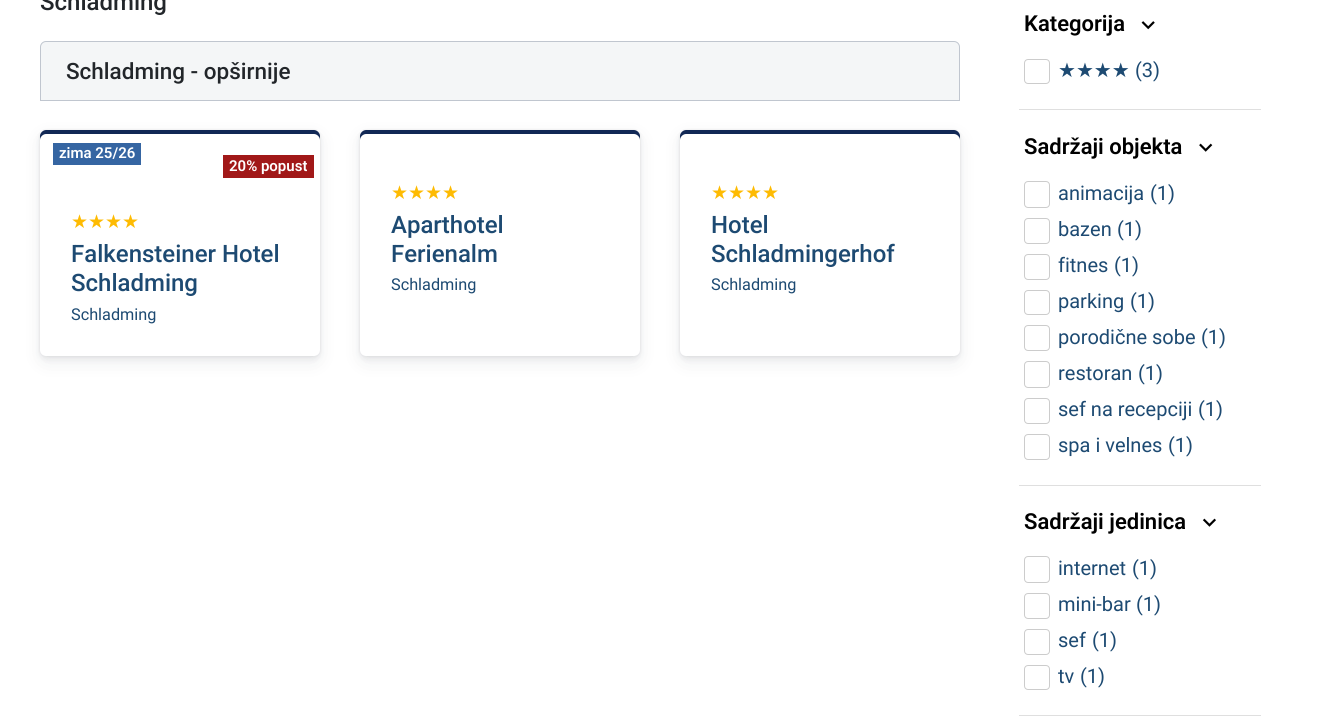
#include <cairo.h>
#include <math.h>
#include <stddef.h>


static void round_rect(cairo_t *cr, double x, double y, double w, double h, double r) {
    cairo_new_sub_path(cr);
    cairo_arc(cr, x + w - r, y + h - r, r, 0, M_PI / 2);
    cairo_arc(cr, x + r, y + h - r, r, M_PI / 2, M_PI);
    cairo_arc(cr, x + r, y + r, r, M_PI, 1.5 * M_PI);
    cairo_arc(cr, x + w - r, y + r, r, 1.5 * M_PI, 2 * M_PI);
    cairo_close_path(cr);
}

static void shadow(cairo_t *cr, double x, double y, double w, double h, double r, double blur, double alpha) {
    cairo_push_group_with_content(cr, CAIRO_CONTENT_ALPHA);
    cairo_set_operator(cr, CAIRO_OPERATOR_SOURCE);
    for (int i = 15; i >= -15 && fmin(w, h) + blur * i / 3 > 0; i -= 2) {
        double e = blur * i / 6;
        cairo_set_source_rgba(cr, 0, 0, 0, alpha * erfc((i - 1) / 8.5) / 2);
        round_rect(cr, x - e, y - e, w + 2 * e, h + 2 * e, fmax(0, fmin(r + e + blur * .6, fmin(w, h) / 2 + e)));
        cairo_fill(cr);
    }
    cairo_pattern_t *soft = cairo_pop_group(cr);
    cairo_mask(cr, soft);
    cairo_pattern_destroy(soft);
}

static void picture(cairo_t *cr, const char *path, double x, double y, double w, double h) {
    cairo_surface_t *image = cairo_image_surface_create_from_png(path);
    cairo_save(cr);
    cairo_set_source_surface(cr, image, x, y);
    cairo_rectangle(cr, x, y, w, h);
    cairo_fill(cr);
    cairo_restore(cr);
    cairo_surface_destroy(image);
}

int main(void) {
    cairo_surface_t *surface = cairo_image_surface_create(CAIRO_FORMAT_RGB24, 1320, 726);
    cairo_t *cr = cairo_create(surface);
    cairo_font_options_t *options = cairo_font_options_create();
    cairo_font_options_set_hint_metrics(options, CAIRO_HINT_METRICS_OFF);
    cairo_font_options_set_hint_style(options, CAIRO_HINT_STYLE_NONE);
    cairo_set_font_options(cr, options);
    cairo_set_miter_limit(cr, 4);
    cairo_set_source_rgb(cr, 1, 1, 1);
    cairo_paint(cr);
    cairo_select_font_face(cr, "Roboto Medium", CAIRO_FONT_SLANT_NORMAL, CAIRO_FONT_WEIGHT_NORMAL);
    cairo_set_font_size(cr, 24);
    cairo_set_source_rgb(cr, 0.133, 0.149, 0.165);
    cairo_move_to(cr, 40, 10);
    cairo_show_text(cr, "Schladming");
    cairo_set_source_rgb(cr, 0.957, 0.961, 0.965);
    cairo_new_path(cr);
    cairo_move_to(cr, 46, 41.5);
    cairo_line_to(cr, 954, 41.5);
    cairo_curve_to(cr, 957, 41.5, 959.5, 44, 959.5, 47);
    cairo_line_to(cr, 959.5, 100.5);
    cairo_line_to(cr, 40.5, 100.5);
    cairo_line_to(cr, 40.5, 47);
    cairo_curve_to(cr, 40.5, 44, 43, 41.5, 46, 41.5);
    cairo_close_path(cr);
    cairo_fill_preserve(cr);
    cairo_set_source_rgb(cr, 0.753, 0.776, 0.812);
    cairo_set_line_width(cr, 1);
    cairo_stroke(cr);
    cairo_set_font_size(cr, 22.5);
    cairo_set_source_rgb(cr, 0.133, 0.149, 0.165);
    cairo_move_to(cr, 66, 79);
    cairo_show_text(cr, "Schladming - opširnije");
    cairo_set_source_rgb(cr, 0.2, 0.224, 0.259);
    shadow(cr, 40, 136, 280, 227, 6, 9.5, 0.08);
    shadow(cr, 40, 133, 280, 226, 6, 3, 0.08);
    shadow(cr, 40, 130, 280, 226, 6, 1, 0.1);
    cairo_set_source_rgb(cr, 1, 1, 1);
    round_rect(cr, 40, 130, 280, 226, 6);
    cairo_fill(cr);
    cairo_set_source_rgb(cr, 0.067, 0.157, 0.333);
    cairo_new_path(cr);
    cairo_move_to(cr, 46, 134);
    cairo_line_to(cr, 314, 134);
    cairo_curve_to(cr, 317, 134, 320, 137, 320, 140);
    cairo_line_to(cr, 320, 136);
    cairo_curve_to(cr, 320, 133, 317, 130, 314, 130);
    cairo_line_to(cr, 46, 130);
    cairo_curve_to(cr, 43, 130, 40, 133, 40, 136);
    cairo_line_to(cr, 40, 140);
    cairo_curve_to(cr, 40, 137, 43, 134, 46, 134);
    cairo_close_path(cr);
    cairo_fill(cr);
    cairo_set_source_rgb(cr, 0.208, 0.396, 0.635);
    cairo_rectangle(cr, 53, 143, 88, 22);
    cairo_fill(cr);
    cairo_select_font_face(cr, "Roboto SemiBold", CAIRO_FONT_SLANT_NORMAL, CAIRO_FONT_WEIGHT_NORMAL);
    cairo_set_font_size(cr, 15);
    cairo_set_source_rgb(cr, 1, 1, 1);
    cairo_move_to(cr, 59, 158);
    cairo_show_text(cr, "zima 25/26");
    cairo_set_source_rgb(cr, 0.631, 0.094, 0.094);
    cairo_rectangle(cr, 223, 155, 91, 23);
    cairo_fill(cr);
    cairo_set_source_rgb(cr, 1, 1, 1);
    cairo_move_to(cr, 229, 171);
    cairo_show_text(cr, "20% popust");
    cairo_select_font_face(cr, "DejaVu Sans", CAIRO_FONT_SLANT_NORMAL, CAIRO_FONT_WEIGHT_NORMAL);
    cairo_set_font_size(cr, 19);
    cairo_set_source_rgb(cr, 0.996, 0.733, 0.008);
    cairo_move_to(cr, 71, 228);
    cairo_show_text(cr, "★★★★");
    cairo_select_font_face(cr, "Roboto Medium", CAIRO_FONT_SLANT_NORMAL, CAIRO_FONT_WEIGHT_NORMAL);
    cairo_set_font_size(cr, 24);
    cairo_set_source_rgb(cr, 0.114, 0.29, 0.447);
    cairo_move_to(cr, 71, 262);
    cairo_show_text(cr, "Falkensteiner Hotel");
    cairo_move_to(cr, 71, 291);
    cairo_show_text(cr, "Schladming");
    cairo_select_font_face(cr, "Roboto", CAIRO_FONT_SLANT_NORMAL, CAIRO_FONT_WEIGHT_NORMAL);
    cairo_set_font_size(cr, 16.25);
    cairo_move_to(cr, 71, 320);
    cairo_show_text(cr, "Schladming");
    cairo_set_source_rgb(cr, 0.2, 0.224, 0.259);
    shadow(cr, 360, 136, 280, 227, 6, 9.5, 0.08);
    shadow(cr, 360, 133, 280, 226, 6, 3, 0.08);
    shadow(cr, 360, 130, 280, 226, 6, 1, 0.1);
    cairo_set_source_rgb(cr, 1, 1, 1);
    round_rect(cr, 360, 130, 280, 226, 6);
    cairo_fill(cr);
    cairo_set_source_rgb(cr, 0.067, 0.157, 0.333);
    cairo_new_path(cr);
    cairo_move_to(cr, 366, 134);
    cairo_line_to(cr, 634, 134);
    cairo_curve_to(cr, 637, 134, 640, 137, 640, 140);
    cairo_line_to(cr, 640, 136);
    cairo_curve_to(cr, 640, 133, 637, 130, 634, 130);
    cairo_line_to(cr, 366, 130);
    cairo_curve_to(cr, 363, 130, 360, 133, 360, 136);
    cairo_line_to(cr, 360, 140);
    cairo_curve_to(cr, 360, 137, 363, 134, 366, 134);
    cairo_close_path(cr);
    cairo_fill(cr);
    cairo_select_font_face(cr, "DejaVu Sans", CAIRO_FONT_SLANT_NORMAL, CAIRO_FONT_WEIGHT_NORMAL);
    cairo_set_font_size(cr, 19);
    cairo_set_source_rgb(cr, 0.996, 0.733, 0.008);
    cairo_move_to(cr, 391, 199);
    cairo_show_text(cr, "★★★★");
    cairo_select_font_face(cr, "Roboto Medium", CAIRO_FONT_SLANT_NORMAL, CAIRO_FONT_WEIGHT_NORMAL);
    cairo_set_font_size(cr, 24);
    cairo_set_source_rgb(cr, 0.114, 0.29, 0.447);
    cairo_move_to(cr, 391, 233);
    cairo_show_text(cr, "Aparthotel");
    cairo_move_to(cr, 391, 262);
    cairo_show_text(cr, "Ferienalm");
    cairo_select_font_face(cr, "Roboto", CAIRO_FONT_SLANT_NORMAL, CAIRO_FONT_WEIGHT_NORMAL);
    cairo_set_font_size(cr, 16.25);
    cairo_move_to(cr, 391, 290);
    cairo_show_text(cr, "Schladming");
    cairo_set_source_rgb(cr, 0.2, 0.224, 0.259);
    shadow(cr, 680, 136, 280, 227, 6, 9.5, 0.08);
    shadow(cr, 680, 133, 280, 226, 6, 3, 0.08);
    shadow(cr, 680, 130, 280, 226, 6, 1, 0.1);
    cairo_set_source_rgb(cr, 1, 1, 1);
    round_rect(cr, 680, 130, 280, 226, 6);
    cairo_fill(cr);
    cairo_set_source_rgb(cr, 0.067, 0.157, 0.333);
    cairo_new_path(cr);
    cairo_move_to(cr, 686, 134);
    cairo_line_to(cr, 954, 134);
    cairo_curve_to(cr, 957, 134, 960, 137, 960, 140);
    cairo_line_to(cr, 960, 136);
    cairo_curve_to(cr, 960, 133, 957, 130, 954, 130);
    cairo_line_to(cr, 686, 130);
    cairo_curve_to(cr, 683, 130, 680, 133, 680, 136);
    cairo_line_to(cr, 680, 140);
    cairo_curve_to(cr, 680, 137, 683, 134, 686, 134);
    cairo_close_path(cr);
    cairo_fill(cr);
    cairo_select_font_face(cr, "DejaVu Sans", CAIRO_FONT_SLANT_NORMAL, CAIRO_FONT_WEIGHT_NORMAL);
    cairo_set_font_size(cr, 19);
    cairo_set_source_rgb(cr, 0.996, 0.733, 0.008);
    cairo_move_to(cr, 711, 199);
    cairo_show_text(cr, "★★★★");
    cairo_select_font_face(cr, "Roboto Medium", CAIRO_FONT_SLANT_NORMAL, CAIRO_FONT_WEIGHT_NORMAL);
    cairo_set_font_size(cr, 24);
    cairo_set_source_rgb(cr, 0.114, 0.29, 0.447);
    cairo_move_to(cr, 711, 233);
    cairo_show_text(cr, "Hotel");
    cairo_move_to(cr, 711, 262);
    cairo_show_text(cr, "Schladmingerhof");
    cairo_select_font_face(cr, "Roboto", CAIRO_FONT_SLANT_NORMAL, CAIRO_FONT_WEIGHT_NORMAL);
    cairo_set_font_size(cr, 16.25);
    cairo_move_to(cr, 711, 290);
    cairo_show_text(cr, "Schladming");
    cairo_set_source_rgb(cr, 0.875, 0.875, 0.875);
    cairo_rectangle(cr, 1019, 109, 242, 1);
    cairo_fill(cr);
    cairo_select_font_face(cr, "Roboto SemiBold", CAIRO_FONT_SLANT_NORMAL, CAIRO_FONT_WEIGHT_NORMAL);
    cairo_set_font_size(cr, 22);
    cairo_set_source_rgb(cr, 0, 0, 0);
    cairo_move_to(cr, 1024, 31);
    cairo_show_text(cr, "Kategorija");
    picture(cr, "img1.png", 1141, 21, 14, 9);
    round_rect(cr, 1024.5, 59.5, 25, 24, 3.5);
    cairo_set_source_rgb(cr, 0.8, 0.8, 0.8);
    cairo_stroke(cr);
    cairo_select_font_face(cr, "DejaVu Sans", CAIRO_FONT_SLANT_NORMAL, CAIRO_FONT_WEIGHT_NORMAL);
    cairo_set_font_size(cr, 20);
    cairo_set_source_rgb(cr, 0.114, 0.29, 0.447);
    cairo_move_to(cr, 1058, 77);
    cairo_show_text(cr, "★★★★");
    cairo_select_font_face(cr, "Roboto", CAIRO_FONT_SLANT_NORMAL, CAIRO_FONT_WEIGHT_NORMAL);
    cairo_move_to(cr, 1135, 77);
    cairo_show_text(cr, "(3)");
    cairo_set_source_rgb(cr, 0.875, 0.875, 0.875);
    cairo_rectangle(cr, 1019, 485, 242, 1);
    cairo_fill(cr);
    cairo_select_font_face(cr, "Roboto SemiBold", CAIRO_FONT_SLANT_NORMAL, CAIRO_FONT_WEIGHT_NORMAL);
    cairo_set_font_size(cr, 22);
    cairo_set_source_rgb(cr, 0, 0, 0);
    cairo_move_to(cr, 1024, 154);
    cairo_show_text(cr, "Sadržaji objekta");
    picture(cr, "img2.png", 1199, 143, 14, 9);
    round_rect(cr, 1024.5, 181.5, 25, 26, 3.5);
    cairo_set_source_rgb(cr, 0.8, 0.8, 0.8);
    cairo_stroke(cr);
    cairo_select_font_face(cr, "Roboto", CAIRO_FONT_SLANT_NORMAL, CAIRO_FONT_WEIGHT_NORMAL);
    cairo_set_font_size(cr, 20);
    cairo_set_source_rgb(cr, 0.114, 0.29, 0.447);
    cairo_move_to(cr, 1058, 200);
    cairo_show_text(cr, "animacija");
    cairo_move_to(cr, 1150, 200);
    cairo_show_text(cr, "(1)");
    round_rect(cr, 1024.5, 218.5, 25, 25, 3.5);
    cairo_set_source_rgb(cr, 0.8, 0.8, 0.8);
    cairo_stroke(cr);
    cairo_set_source_rgb(cr, 0.114, 0.29, 0.447);
    cairo_move_to(cr, 1058, 236);
    cairo_show_text(cr, "bazen");
    cairo_move_to(cr, 1117, 236);
    cairo_show_text(cr, "(1)");
    round_rect(cr, 1024.5, 254.5, 25, 25, 3.5);
    cairo_set_source_rgb(cr, 0.8, 0.8, 0.8);
    cairo_stroke(cr);
    cairo_set_source_rgb(cr, 0.114, 0.29, 0.447);
    cairo_move_to(cr, 1058, 272);
    cairo_show_text(cr, "fitnes");
    cairo_move_to(cr, 1114, 272);
    cairo_show_text(cr, "(1)");
    round_rect(cr, 1024.5, 290.5, 25, 24, 3.5);
    cairo_set_source_rgb(cr, 0.8, 0.8, 0.8);
    cairo_stroke(cr);
    cairo_set_source_rgb(cr, 0.114, 0.29, 0.447);
    cairo_move_to(cr, 1058, 308);
    cairo_show_text(cr, "parking");
    cairo_move_to(cr, 1130, 308);
    cairo_show_text(cr, "(1)");
    round_rect(cr, 1024.5, 325.5, 25, 25, 3.5);
    cairo_set_source_rgb(cr, 0.8, 0.8, 0.8);
    cairo_stroke(cr);
    cairo_set_source_rgb(cr, 0.114, 0.29, 0.447);
    cairo_move_to(cr, 1058, 344);
    cairo_show_text(cr, "porodične sobe");
    cairo_move_to(cr, 1201, 344);
    cairo_show_text(cr, "(1)");
    round_rect(cr, 1024.5, 361.5, 25, 26, 3.5);
    cairo_set_source_rgb(cr, 0.8, 0.8, 0.8);
    cairo_stroke(cr);
    cairo_set_source_rgb(cr, 0.114, 0.29, 0.447);
    cairo_move_to(cr, 1058, 380);
    cairo_show_text(cr, "restoran");
    cairo_move_to(cr, 1138, 380);
    cairo_show_text(cr, "(1)");
    round_rect(cr, 1024.5, 398.5, 25, 25, 3.5);
    cairo_set_source_rgb(cr, 0.8, 0.8, 0.8);
    cairo_stroke(cr);
    cairo_set_source_rgb(cr, 0.114, 0.29, 0.447);
    cairo_move_to(cr, 1058, 416);
    cairo_show_text(cr, "sef na recepciji");
    cairo_move_to(cr, 1198, 416);
    cairo_show_text(cr, "(1)");
    round_rect(cr, 1024.5, 434.5, 25, 25, 3.5);
    cairo_set_source_rgb(cr, 0.8, 0.8, 0.8);
    cairo_stroke(cr);
    cairo_set_source_rgb(cr, 0.114, 0.29, 0.447);
    cairo_move_to(cr, 1058, 452);
    cairo_show_text(cr, "spa i velnes");
    cairo_move_to(cr, 1168, 452);
    cairo_show_text(cr, "(1)");
    cairo_set_source_rgb(cr, 0.875, 0.875, 0.875);
    cairo_rectangle(cr, 1019, 715, 242, 1);
    cairo_fill(cr);
    cairo_select_font_face(cr, "Roboto SemiBold", CAIRO_FONT_SLANT_NORMAL, CAIRO_FONT_WEIGHT_NORMAL);
    cairo_set_font_size(cr, 22);
    cairo_set_source_rgb(cr, 0, 0, 0);
    cairo_move_to(cr, 1024, 529);
    cairo_show_text(cr, "Sadržaji jedinica");
    picture(cr, "img3.png", 1202, 518, 14, 9);
    round_rect(cr, 1024.5, 556.5, 25, 26, 3.5);
    cairo_set_source_rgb(cr, 0.8, 0.8, 0.8);
    cairo_stroke(cr);
    cairo_select_font_face(cr, "Roboto", CAIRO_FONT_SLANT_NORMAL, CAIRO_FONT_WEIGHT_NORMAL);
    cairo_set_font_size(cr, 20);
    cairo_set_source_rgb(cr, 0.114, 0.29, 0.447);
    cairo_move_to(cr, 1058, 575);
    cairo_show_text(cr, "internet");
    cairo_move_to(cr, 1132, 575);
    cairo_show_text(cr, "(1)");
    round_rect(cr, 1024.5, 593.5, 25, 25, 3.5);
    cairo_set_source_rgb(cr, 0.8, 0.8, 0.8);
    cairo_stroke(cr);
    cairo_set_source_rgb(cr, 0.114, 0.29, 0.447);
    cairo_move_to(cr, 1058, 611);
    cairo_show_text(cr, "mini-bar");
    cairo_move_to(cr, 1136, 611);
    cairo_show_text(cr, "(1)");
    round_rect(cr, 1024.5, 629.5, 25, 25, 3.5);
    cairo_set_source_rgb(cr, 0.8, 0.8, 0.8);
    cairo_stroke(cr);
    cairo_set_source_rgb(cr, 0.114, 0.29, 0.447);
    cairo_move_to(cr, 1058, 647);
    cairo_show_text(cr, "sef");
    cairo_move_to(cr, 1092, 647);
    cairo_show_text(cr, "(1)");
    round_rect(cr, 1024.5, 665.5, 25, 24, 3.5);
    cairo_set_source_rgb(cr, 0.8, 0.8, 0.8);
    cairo_stroke(cr);
    cairo_set_source_rgb(cr, 0.114, 0.29, 0.447);
    cairo_move_to(cr, 1058, 683);
    cairo_show_text(cr, "tv");
    cairo_move_to(cr, 1080, 683);
    cairo_show_text(cr, "(1)");
    cairo_surface_write_to_png(surface, "page.png");
    cairo_font_options_destroy(options);
    cairo_destroy(cr);
    cairo_surface_destroy(surface);
    return 0;
}
